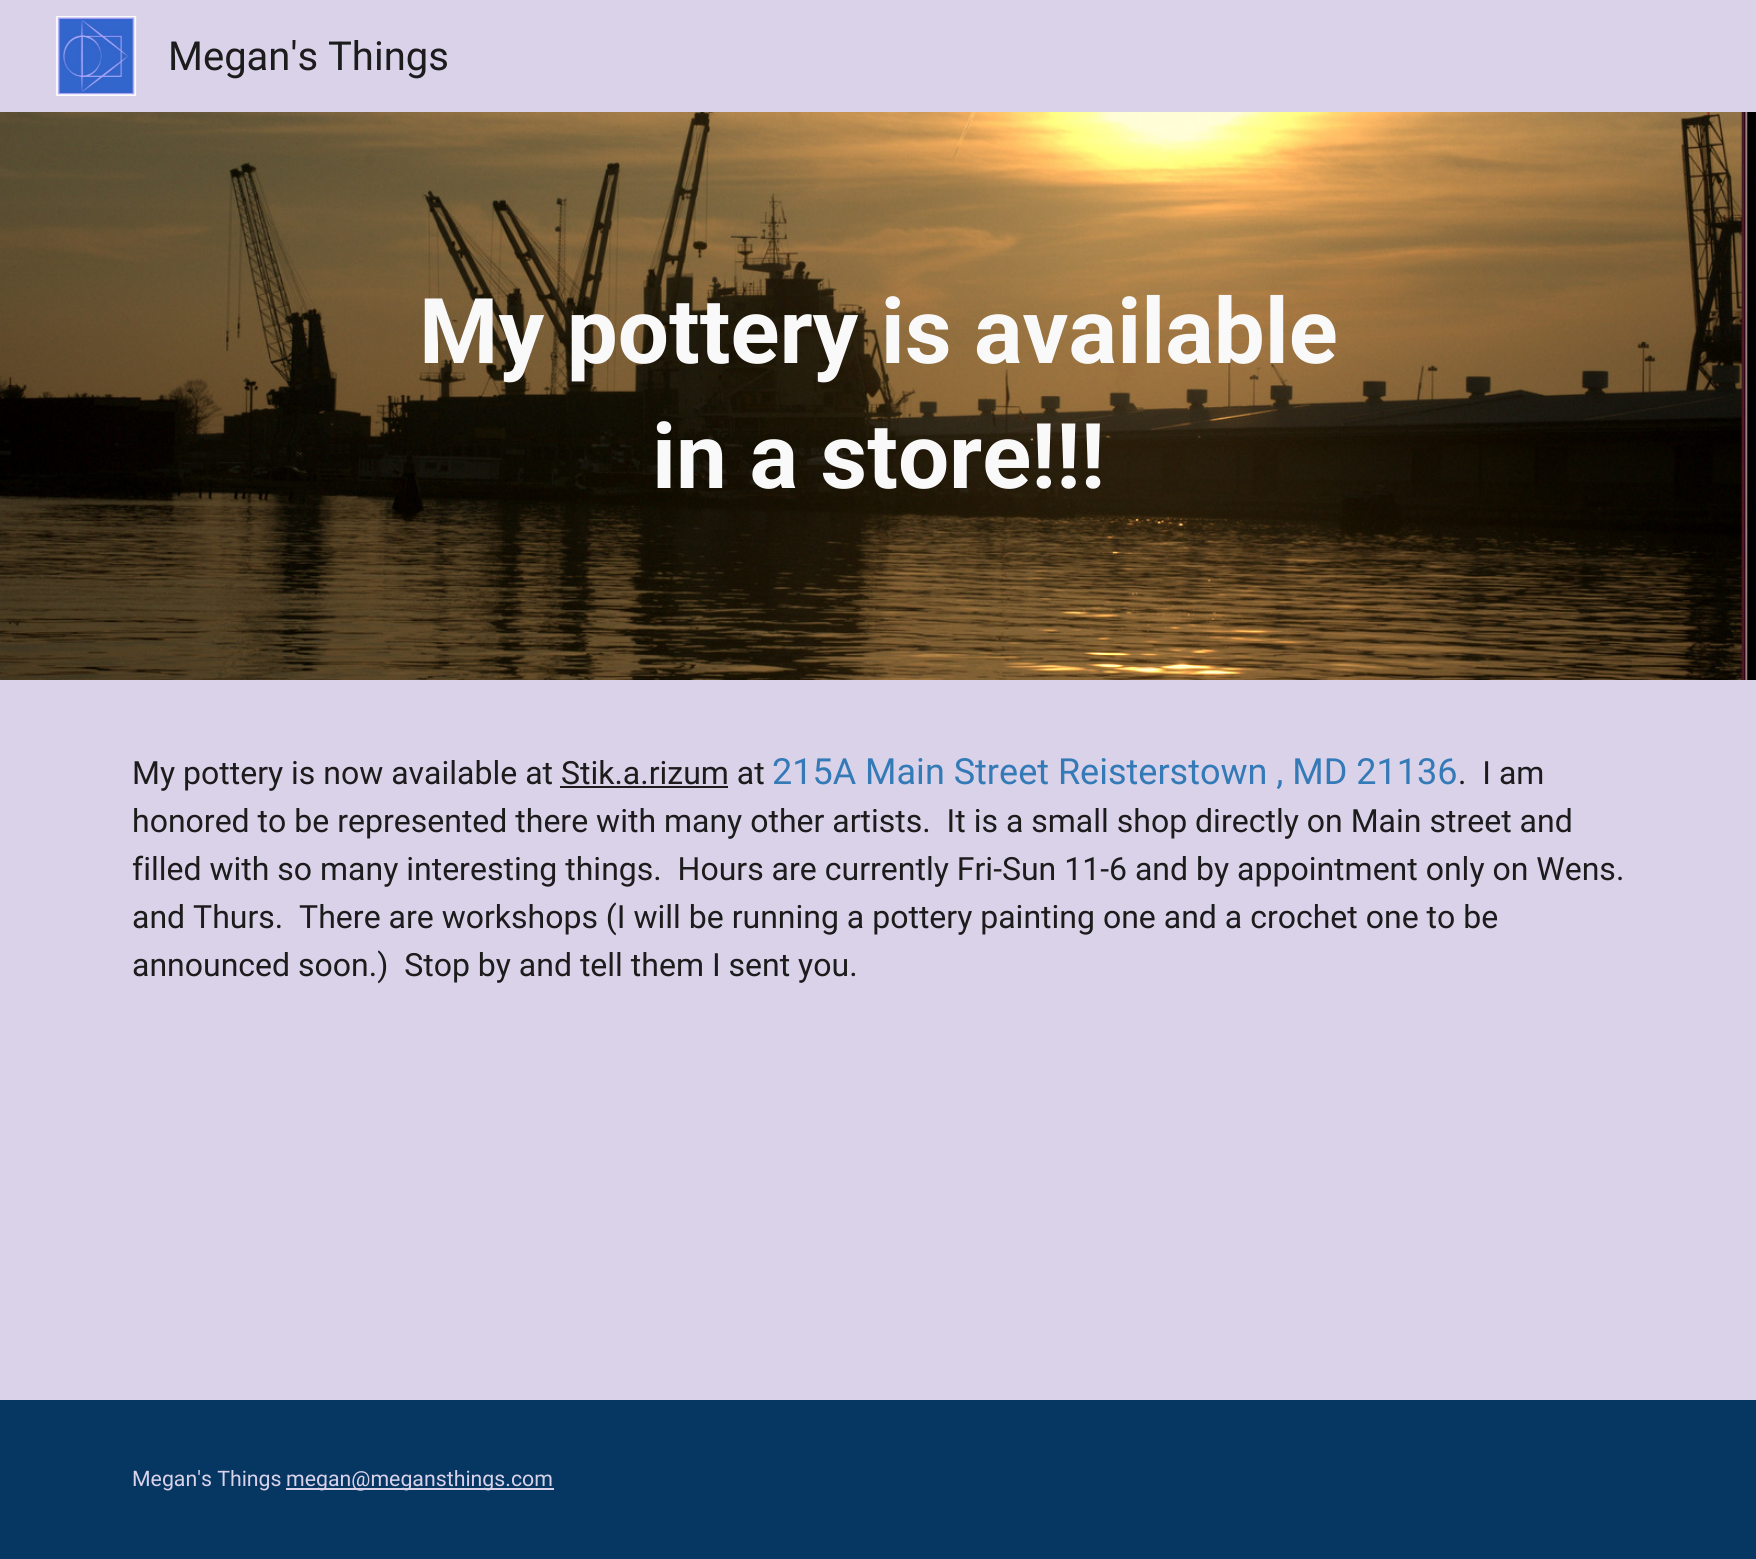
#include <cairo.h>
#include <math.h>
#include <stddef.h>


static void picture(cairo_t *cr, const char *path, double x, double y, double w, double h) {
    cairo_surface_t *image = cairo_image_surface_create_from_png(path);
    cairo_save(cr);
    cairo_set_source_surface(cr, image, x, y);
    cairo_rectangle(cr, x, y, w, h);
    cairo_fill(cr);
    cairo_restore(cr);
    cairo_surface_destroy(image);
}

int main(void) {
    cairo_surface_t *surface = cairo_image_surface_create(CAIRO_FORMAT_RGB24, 1756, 1559);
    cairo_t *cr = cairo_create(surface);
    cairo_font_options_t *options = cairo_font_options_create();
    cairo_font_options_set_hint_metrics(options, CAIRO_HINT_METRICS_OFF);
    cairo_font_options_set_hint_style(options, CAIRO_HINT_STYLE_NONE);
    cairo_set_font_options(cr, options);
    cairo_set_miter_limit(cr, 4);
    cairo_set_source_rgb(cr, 0.851, 0.824, 0.914);
    cairo_paint(cr);
    picture(cr, "img1.png", 55, 16, 82, 80);
    cairo_select_font_face(cr, "Roboto", CAIRO_FONT_SLANT_NORMAL, CAIRO_FONT_WEIGHT_NORMAL);
    cairo_set_font_size(cr, 40);
    cairo_set_source_rgb(cr, 0.11, 0.11, 0.11);
    cairo_move_to(cr, 168, 70);
    cairo_show_text(cr, "Megan's Things");
    picture(cr, "img2.png", 0, 112, 1756, 568);
    cairo_select_font_face(cr, "Roboto", CAIRO_FONT_SLANT_NORMAL, CAIRO_FONT_WEIGHT_BOLD);
    cairo_set_font_size(cr, 90.75);
    cairo_set_source_rgb(cr, 0.976, 0.976, 0.976);
    cairo_move_to(cr, 419, 363);
    cairo_show_text(cr, "My pottery is available");
    cairo_move_to(cr, 652, 488);
    cairo_show_text(cr, "in a store!!!");
    cairo_select_font_face(cr, "Roboto", CAIRO_FONT_SLANT_NORMAL, CAIRO_FONT_WEIGHT_NORMAL);
    cairo_set_font_size(cr, 32);
    cairo_set_source_rgb(cr, 0.11, 0.11, 0.11);
    cairo_move_to(cr, 132, 784);
    cairo_show_text(cr, "My pottery is now available at Stik.a.rizum at");
    cairo_set_font_size(cr, 36);
    cairo_set_source_rgb(cr, 0.2, 0.478, 0.718);
    cairo_move_to(cr, 772, 784);
    cairo_show_text(cr, "215A Main Street Reisterstown , MD 21136");
    cairo_set_font_size(cr, 32);
    cairo_set_source_rgb(cr, 0.11, 0.11, 0.11);
    cairo_move_to(cr, 1458, 784);
    cairo_show_text(cr, ".  I am");
    cairo_rectangle(cr, 560, 786, 168, 2);
    cairo_fill(cr);
    cairo_move_to(cr, 132, 832);
    cairo_show_text(cr, "honored to be represented there with many other artists.  It is a small shop directly on Main street and");
    cairo_move_to(cr, 132, 880);
    cairo_show_text(cr, "filled with so many interesting things.  Hours are currently Fri-Sun 11-6 and by appointment only on Wens.");
    cairo_move_to(cr, 132, 928);
    cairo_show_text(cr, "and Thurs.  There are workshops (I will be running a pottery painting one and a crochet one to be");
    cairo_move_to(cr, 132, 976);
    cairo_show_text(cr, "announced soon.)  Stop by and tell them I sent you.");
    cairo_set_source_rgb(cr, 0.027, 0.216, 0.388);
    cairo_rectangle(cr, 0, 1400, 1756, 159);
    cairo_fill(cr);
    cairo_set_font_size(cr, 21.3);
    cairo_set_source_rgb(cr, 0.851, 0.824, 0.914);
    cairo_move_to(cr, 132, 1486);
    cairo_show_text(cr, "Megan's Things");
    cairo_rectangle(cr, 286, 1488, 268, 2);
    cairo_fill(cr);
    cairo_move_to(cr, 286, 1486);
    cairo_show_text(cr, "megan@megansthings.com");
    cairo_surface_write_to_png(surface, "page.png");
    cairo_font_options_destroy(options);
    cairo_destroy(cr);
    cairo_surface_destroy(surface);
    return 0;
}
